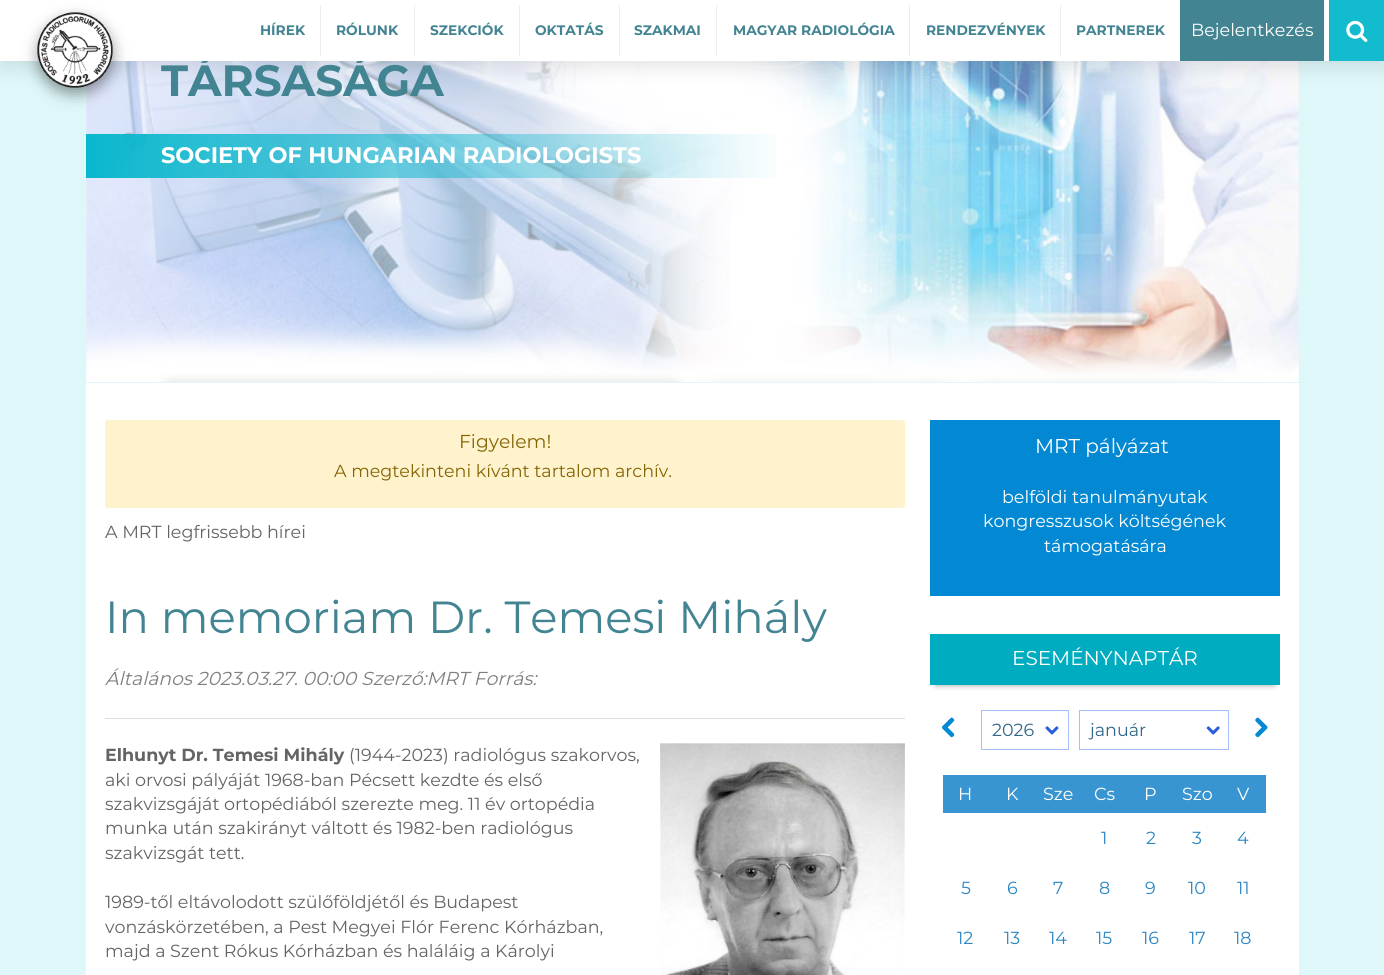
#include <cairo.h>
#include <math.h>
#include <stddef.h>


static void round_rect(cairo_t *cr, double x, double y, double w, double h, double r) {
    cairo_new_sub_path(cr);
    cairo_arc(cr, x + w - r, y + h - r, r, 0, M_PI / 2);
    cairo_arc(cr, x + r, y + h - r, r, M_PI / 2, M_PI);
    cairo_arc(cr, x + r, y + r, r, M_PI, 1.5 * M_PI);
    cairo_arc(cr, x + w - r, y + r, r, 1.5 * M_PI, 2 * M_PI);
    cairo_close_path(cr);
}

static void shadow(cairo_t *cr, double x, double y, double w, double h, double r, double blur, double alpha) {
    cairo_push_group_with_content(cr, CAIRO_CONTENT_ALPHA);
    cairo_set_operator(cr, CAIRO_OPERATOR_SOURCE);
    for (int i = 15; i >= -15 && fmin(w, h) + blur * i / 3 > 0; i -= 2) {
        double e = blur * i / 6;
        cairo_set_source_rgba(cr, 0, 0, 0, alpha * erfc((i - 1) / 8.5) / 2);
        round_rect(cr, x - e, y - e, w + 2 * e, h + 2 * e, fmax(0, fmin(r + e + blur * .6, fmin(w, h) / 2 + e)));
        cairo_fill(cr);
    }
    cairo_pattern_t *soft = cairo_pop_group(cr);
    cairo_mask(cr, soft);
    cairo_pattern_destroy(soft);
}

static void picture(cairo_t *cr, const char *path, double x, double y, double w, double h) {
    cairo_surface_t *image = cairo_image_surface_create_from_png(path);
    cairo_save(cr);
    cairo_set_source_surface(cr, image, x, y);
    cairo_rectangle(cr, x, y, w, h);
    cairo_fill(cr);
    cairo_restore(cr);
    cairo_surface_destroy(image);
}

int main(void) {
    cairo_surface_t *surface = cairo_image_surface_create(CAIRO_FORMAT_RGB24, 1384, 975);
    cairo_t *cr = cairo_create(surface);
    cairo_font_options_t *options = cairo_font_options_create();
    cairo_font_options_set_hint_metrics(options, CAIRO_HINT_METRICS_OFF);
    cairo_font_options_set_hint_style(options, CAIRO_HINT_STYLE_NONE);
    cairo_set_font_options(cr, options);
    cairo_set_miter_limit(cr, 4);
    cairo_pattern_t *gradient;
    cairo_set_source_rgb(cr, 0.871, 0.965, 0.976);
    cairo_paint(cr);
    picture(cr, "img3.png", 86, 61, 1213, 321);
    cairo_set_source_rgb(cr, 0, 0, 0);
    shadow(cr, 0, 6, 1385, 62, 0, 9.5, 0.1);
    cairo_select_font_face(cr, "Montserrat", CAIRO_FONT_SLANT_NORMAL, CAIRO_FONT_WEIGHT_BOLD);
    cairo_set_font_size(cr, 43.75);
    cairo_set_source_rgb(cr, 0.259, 0.518, 0.573);
    cairo_move_to(cr, 161, 96);
    cairo_show_text(cr, "TÁRSASÁGA");
    cairo_set_source_rgb(cr, 1, 1, 1);
    cairo_rectangle(cr, 0, 0, 1329, 61);
    cairo_fill(cr);
    cairo_set_source_rgb(cr, 0, 0, 0);
    shadow(cr, 38, 19, 75, 75, 37.5, 7.5, 0.4);
    picture(cr, "img1.png", 37, 12, 76, 76);
    cairo_set_font_size(cr, 13.75);
    cairo_set_source_rgb(cr, 0.259, 0.518, 0.573);
    cairo_move_to(cr, 260, 35);
    cairo_show_text(cr, "HÍREK");
    cairo_set_source_rgb(cr, 0.929, 0.929, 0.929);
    cairo_rectangle(cr, 320, 5, 1, 51);
    cairo_fill(cr);
    cairo_set_source_rgb(cr, 0.259, 0.518, 0.573);
    cairo_move_to(cr, 336, 35);
    cairo_show_text(cr, "RÓLUNK");
    cairo_set_source_rgb(cr, 0.929, 0.929, 0.929);
    cairo_rectangle(cr, 414, 5, 1, 51);
    cairo_fill(cr);
    cairo_set_source_rgb(cr, 0.259, 0.518, 0.573);
    cairo_move_to(cr, 430, 35);
    cairo_show_text(cr, "SZEKCIÓK");
    cairo_set_source_rgb(cr, 0.929, 0.929, 0.929);
    cairo_rectangle(cr, 519, 5, 1, 51);
    cairo_fill(cr);
    cairo_set_source_rgb(cr, 0.259, 0.518, 0.573);
    cairo_move_to(cr, 535, 35);
    cairo_show_text(cr, "OKTATÁS");
    cairo_set_source_rgb(cr, 0.929, 0.929, 0.929);
    cairo_rectangle(cr, 619, 5, 1, 51);
    cairo_fill(cr);
    cairo_set_source_rgb(cr, 0.259, 0.518, 0.573);
    cairo_move_to(cr, 634, 35);
    cairo_show_text(cr, "SZAKMAI");
    cairo_set_source_rgb(cr, 0.929, 0.929, 0.929);
    cairo_rectangle(cr, 716, 5, 1, 51);
    cairo_fill(cr);
    cairo_set_source_rgb(cr, 0.259, 0.518, 0.573);
    cairo_move_to(cr, 733, 35);
    cairo_show_text(cr, "MAGYAR RADIOLÓGIA");
    cairo_set_source_rgb(cr, 0.929, 0.929, 0.929);
    cairo_rectangle(cr, 909, 5, 1, 51);
    cairo_fill(cr);
    cairo_set_source_rgb(cr, 0.259, 0.518, 0.573);
    cairo_move_to(cr, 926, 35);
    cairo_show_text(cr, "RENDEZVÉNYEK");
    cairo_set_source_rgb(cr, 0.929, 0.929, 0.929);
    cairo_rectangle(cr, 1060, 5, 1, 51);
    cairo_fill(cr);
    cairo_set_source_rgb(cr, 0.259, 0.518, 0.573);
    cairo_move_to(cr, 1076, 35);
    cairo_show_text(cr, "PARTNEREK");
    cairo_rectangle(cr, 1180, 0, 144, 61);
    cairo_fill(cr);
    cairo_select_font_face(cr, "Montserrat", CAIRO_FONT_SLANT_NORMAL, CAIRO_FONT_WEIGHT_NORMAL);
    cairo_set_font_size(cr, 17.5);
    cairo_set_source_rgb(cr, 1, 1, 1);
    cairo_move_to(cr, 1191, 36);
    cairo_show_text(cr, "Bejelentkezés");
    cairo_set_source_rgb(cr, 0.078, 0.733, 0.808);
    cairo_rectangle(cr, 1329, 0, 55, 61);
    cairo_fill(cr);
    picture(cr, "img2.png", 1346, 20, 22, 22);
    gradient = cairo_pattern_create_linear(86, 156, 791, 156);
    cairo_pattern_add_color_stop_rgba(gradient, 0, 0.035, 0.718, 0.8, 1);
    cairo_pattern_add_color_stop_rgba(gradient, 1, 0.035, 0.718, 0.8, 0);
    cairo_set_source(cr, gradient);
    cairo_pattern_destroy(gradient);
    cairo_rectangle(cr, 86, 134, 690, 44);
    cairo_fill(cr);
    cairo_select_font_face(cr, "Montserrat", CAIRO_FONT_SLANT_NORMAL, CAIRO_FONT_WEIGHT_BOLD);
    cairo_set_font_size(cr, 22.5);
    cairo_set_source_rgb(cr, 1, 1, 1);
    cairo_move_to(cr, 161, 163);
    cairo_show_text(cr, "SOCIETY OF HUNGARIAN RADIOLOGISTS");
    cairo_rectangle(cr, 86, 383, 1213, 592);
    cairo_fill(cr);
    cairo_set_source_rgb(cr, 1, 0.953, 0.804);
    round_rect(cr, 105, 420, 800, 88, 3);
    cairo_fill(cr);
    cairo_select_font_face(cr, "Montserrat", CAIRO_FONT_SLANT_NORMAL, CAIRO_FONT_WEIGHT_NORMAL);
    cairo_set_font_size(cr, 18.75);
    cairo_set_source_rgb(cr, 0.522, 0.392, 0.016);
    cairo_move_to(cr, 459, 448);
    cairo_show_text(cr, "Figyelem!");
    cairo_set_font_size(cr, 17.5);
    cairo_move_to(cr, 334, 477);
    cairo_show_text(cr, "A megtekinteni kívánt tartalom archív.");
    cairo_set_source_rgb(cr, 0.392, 0.392, 0.392);
    cairo_move_to(cr, 105, 538);
    cairo_show_text(cr, "A MRT legfrissebb hírei");
    cairo_set_font_size(cr, 45);
    cairo_set_source_rgb(cr, 0.259, 0.518, 0.573);
    cairo_move_to(cr, 105, 633);
    cairo_show_text(cr, "In memoriam Dr. Temesi Mihály");
    cairo_set_source_rgb(cr, 0.867, 0.867, 0.867);
    cairo_rectangle(cr, 105, 718, 800, 1);
    cairo_fill(cr);
    cairo_select_font_face(cr, "Montserrat", CAIRO_FONT_SLANT_ITALIC, CAIRO_FONT_WEIGHT_NORMAL);
    cairo_set_font_size(cr, 18.75);
    cairo_set_source_rgb(cr, 0.502, 0.502, 0.502);
    cairo_move_to(cr, 105, 685);
    cairo_show_text(cr, "Általános 2023.03.27. 00:00 Szerző:MRT Forrás:");
    cairo_select_font_face(cr, "Montserrat", CAIRO_FONT_SLANT_NORMAL, CAIRO_FONT_WEIGHT_BOLD);
    cairo_set_font_size(cr, 17.5);
    cairo_set_source_rgb(cr, 0.392, 0.392, 0.392);
    cairo_move_to(cr, 105, 761);
    cairo_show_text(cr, "Elhunyt Dr. Temesi Mihály");
    cairo_select_font_face(cr, "Montserrat", CAIRO_FONT_SLANT_NORMAL, CAIRO_FONT_WEIGHT_NORMAL);
    cairo_move_to(cr, 349, 761);
    cairo_show_text(cr, "(1944-2023) radiológus szakorvos,");
    cairo_move_to(cr, 105, 786);
    cairo_show_text(cr, "aki orvosi pályáját 1968-ban Pécsett kezdte és első");
    cairo_move_to(cr, 105, 810);
    cairo_show_text(cr, "szakvizsgáját ortopédiából szerezte meg. 11 év ortopédia");
    cairo_move_to(cr, 105, 834);
    cairo_show_text(cr, "munka után szakirányt váltott és 1982-ben radiológus");
    cairo_move_to(cr, 105, 859);
    cairo_show_text(cr, "szakvizsgát tett.");
    cairo_move_to(cr, 105, 908);
    cairo_show_text(cr, "1989-től eltávolodott szülőföldjétől és Budapest");
    cairo_move_to(cr, 105, 933);
    cairo_show_text(cr, "vonzáskörzetében, a Pest Megyei Flór Ferenc Kórházban,");
    cairo_move_to(cr, 105, 957);
    cairo_show_text(cr, "majd a Szent Rókus Kórházban és haláláig a Károlyi");
    picture(cr, "img4.png", 660, 743, 245, 232);
    cairo_set_source_rgb(cr, 0.012, 0.537, 0.827);
    cairo_rectangle(cr, 930, 420, 350, 176);
    cairo_fill(cr);
    cairo_set_font_size(cr, 20);
    cairo_set_source_rgb(cr, 1, 1, 1);
    cairo_move_to(cr, 1035, 453);
    cairo_show_text(cr, "MRT pályázat");
    cairo_set_font_size(cr, 17.5);
    cairo_move_to(cr, 1002, 503);
    cairo_show_text(cr, "belföldi tanulmányutak");
    cairo_move_to(cr, 983, 527);
    cairo_show_text(cr, "kongresszusok költségének");
    cairo_move_to(cr, 1044, 552);
    cairo_show_text(cr, "támogatására");
    cairo_set_source_rgb(cr, 0, 0, 0);
    shadow(cr, 936, 646, 338, 39, 0, 3, 0.4);
    cairo_set_source_rgb(cr, 0, 0.675, 0.749);
    cairo_rectangle(cr, 930, 634, 350, 51);
    cairo_fill(cr);
    cairo_set_font_size(cr, 20);
    cairo_set_source_rgb(cr, 1, 1, 1);
    cairo_move_to(cr, 1012, 665);
    cairo_show_text(cr, "ESEMÉNYNAPTÁR");
    picture(cr, "img5.png", 941, 717, 14, 21);
    picture(cr, "img6.png", 1255, 717, 13, 21);
    cairo_rectangle(cr, 981.5, 710.5, 87, 39);
    cairo_set_source_rgb(cr, 0.643, 0.745, 1);
    cairo_set_line_width(cr, 1);
    cairo_stroke(cr);
    cairo_set_font_size(cr, 17.5);
    cairo_set_source_rgb(cr, 0.192, 0.4, 0.533);
    cairo_move_to(cr, 992, 736);
    cairo_show_text(cr, "2026");
    picture(cr, "img7.png", 1045, 726, 14, 9);
    cairo_rectangle(cr, 1079.5, 710.5, 149, 39);
    cairo_set_source_rgb(cr, 0.643, 0.745, 1);
    cairo_stroke(cr);
    cairo_set_source_rgb(cr, 0.192, 0.4, 0.533);
    cairo_move_to(cr, 1090, 736);
    cairo_show_text(cr, "január");
    picture(cr, "img8.png", 1206, 726, 14, 9);
    cairo_set_source_rgb(cr, 0.224, 0.584, 0.82);
    cairo_rectangle(cr, 943, 775, 323, 38);
    cairo_fill(cr);
    cairo_set_source_rgb(cr, 1, 1, 1);
    cairo_move_to(cr, 958, 800);
    cairo_show_text(cr, "H");
    cairo_move_to(cr, 1006, 800);
    cairo_show_text(cr, "K");
    cairo_move_to(cr, 1043, 800);
    cairo_show_text(cr, "Sze");
    cairo_move_to(cr, 1094, 800);
    cairo_show_text(cr, "Cs");
    cairo_move_to(cr, 1144, 800);
    cairo_show_text(cr, "P");
    cairo_move_to(cr, 1182, 800);
    cairo_show_text(cr, "Szo");
    cairo_move_to(cr, 1237, 800);
    cairo_show_text(cr, "V");
    cairo_set_source_rgb(cr, 0.173, 0.529, 0.765);
    cairo_move_to(cr, 1101, 844);
    cairo_show_text(cr, "1");
    cairo_move_to(cr, 1146, 844);
    cairo_show_text(cr, "2");
    cairo_move_to(cr, 1192, 844);
    cairo_show_text(cr, "3");
    cairo_move_to(cr, 1237, 844);
    cairo_show_text(cr, "4");
    cairo_move_to(cr, 961, 894);
    cairo_show_text(cr, "5");
    cairo_move_to(cr, 1007, 894);
    cairo_show_text(cr, "6");
    cairo_move_to(cr, 1053, 894);
    cairo_show_text(cr, "7");
    cairo_move_to(cr, 1099, 894);
    cairo_show_text(cr, "8");
    cairo_move_to(cr, 1145, 894);
    cairo_show_text(cr, "9");
    cairo_move_to(cr, 1188, 894);
    cairo_show_text(cr, "10");
    cairo_move_to(cr, 1237, 894);
    cairo_show_text(cr, "11");
    cairo_move_to(cr, 957, 944);
    cairo_show_text(cr, "12");
    cairo_move_to(cr, 1004, 944);
    cairo_show_text(cr, "13");
    cairo_move_to(cr, 1049, 944);
    cairo_show_text(cr, "14");
    cairo_move_to(cr, 1096, 944);
    cairo_show_text(cr, "15");
    cairo_move_to(cr, 1142, 944);
    cairo_show_text(cr, "16");
    cairo_move_to(cr, 1189, 944);
    cairo_show_text(cr, "17");
    cairo_move_to(cr, 1234, 944);
    cairo_show_text(cr, "18");
    cairo_surface_write_to_png(surface, "page.png");
    cairo_font_options_destroy(options);
    cairo_destroy(cr);
    cairo_surface_destroy(surface);
    return 0;
}
